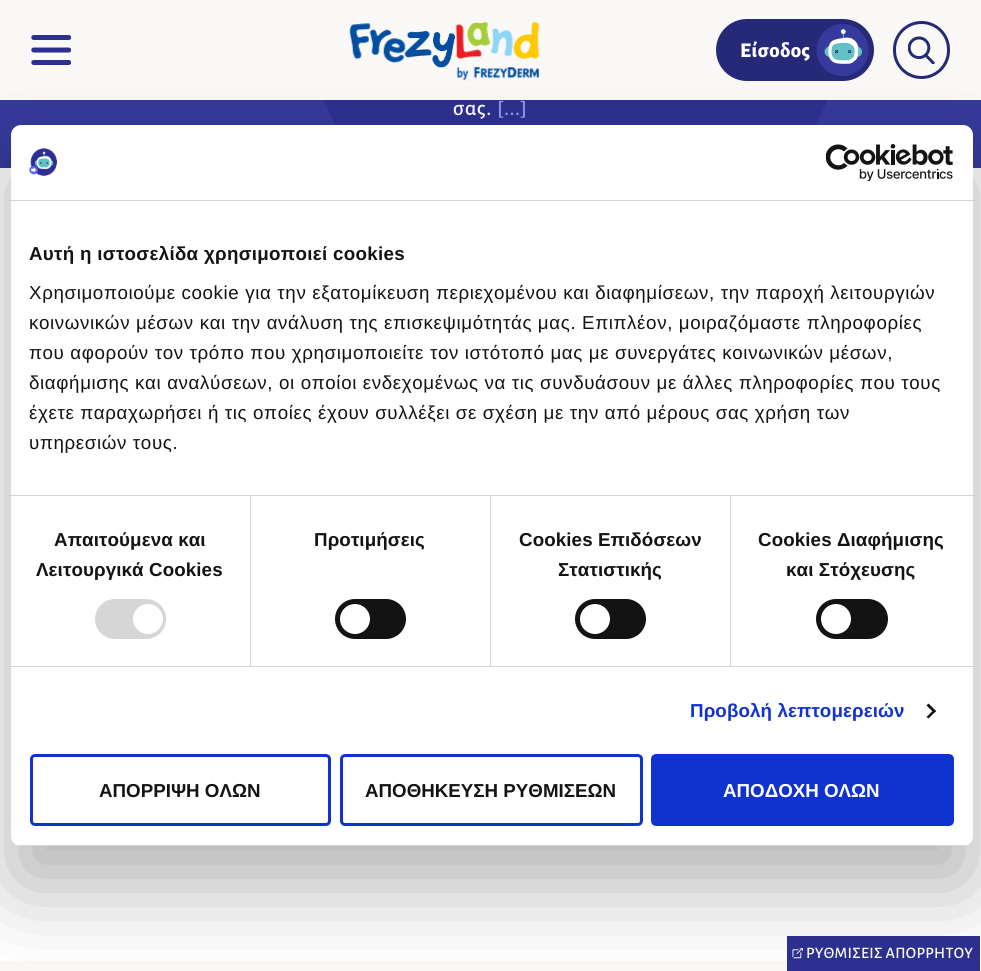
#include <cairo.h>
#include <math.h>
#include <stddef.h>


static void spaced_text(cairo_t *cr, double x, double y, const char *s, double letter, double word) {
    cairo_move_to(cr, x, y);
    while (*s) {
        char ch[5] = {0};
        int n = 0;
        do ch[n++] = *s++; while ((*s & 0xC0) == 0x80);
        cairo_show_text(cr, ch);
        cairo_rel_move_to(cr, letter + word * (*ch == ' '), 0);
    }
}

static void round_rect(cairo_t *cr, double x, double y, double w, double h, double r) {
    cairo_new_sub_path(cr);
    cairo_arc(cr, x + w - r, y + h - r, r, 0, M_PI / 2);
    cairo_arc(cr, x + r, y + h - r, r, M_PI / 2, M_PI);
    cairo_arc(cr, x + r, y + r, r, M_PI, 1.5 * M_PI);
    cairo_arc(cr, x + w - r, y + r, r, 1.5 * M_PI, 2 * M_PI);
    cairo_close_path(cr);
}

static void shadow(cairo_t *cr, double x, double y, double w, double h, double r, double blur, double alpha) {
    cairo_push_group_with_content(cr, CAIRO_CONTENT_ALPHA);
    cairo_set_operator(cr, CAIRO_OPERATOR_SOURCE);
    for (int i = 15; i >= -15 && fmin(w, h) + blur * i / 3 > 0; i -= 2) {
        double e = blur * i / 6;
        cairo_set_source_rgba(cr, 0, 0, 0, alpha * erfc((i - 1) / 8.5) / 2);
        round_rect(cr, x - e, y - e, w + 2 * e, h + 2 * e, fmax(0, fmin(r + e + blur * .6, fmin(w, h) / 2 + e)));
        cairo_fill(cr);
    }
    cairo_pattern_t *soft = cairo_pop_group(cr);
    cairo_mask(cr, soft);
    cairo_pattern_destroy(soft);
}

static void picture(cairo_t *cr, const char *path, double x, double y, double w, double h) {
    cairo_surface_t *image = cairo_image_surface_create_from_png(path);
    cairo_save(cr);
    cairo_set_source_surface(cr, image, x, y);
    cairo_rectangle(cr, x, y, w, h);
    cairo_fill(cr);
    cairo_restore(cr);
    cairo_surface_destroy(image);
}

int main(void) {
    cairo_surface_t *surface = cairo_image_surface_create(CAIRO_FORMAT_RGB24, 981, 971);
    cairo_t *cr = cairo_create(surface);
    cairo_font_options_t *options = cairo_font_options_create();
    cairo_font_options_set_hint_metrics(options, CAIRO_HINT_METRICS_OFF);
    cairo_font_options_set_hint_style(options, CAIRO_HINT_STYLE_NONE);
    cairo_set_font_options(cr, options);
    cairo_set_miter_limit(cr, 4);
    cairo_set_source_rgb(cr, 0.98, 0.973, 0.969);
    cairo_paint(cr);
    picture(cr, "img1.png", 31, 35, 40, 30);
    picture(cr, "img2.png", 349, 23, 22, 37);
    picture(cr, "img9.png", 455, 24, 27, 36);
    picture(cr, "img3.png", 466, 22, 25, 24);
    picture(cr, "img4.png", 513, 22, 26, 37);
    picture(cr, "img5.png", 369, 29, 23, 26);
    picture(cr, "img6.png", 383, 38, 23, 25);
    picture(cr, "img7.png", 404, 31, 28, 27);
    picture(cr, "img8.png", 432, 32, 23, 36);
    picture(cr, "img10.png", 490, 28, 23, 29);
    picture(cr, "img11.png", 456, 67, 83, 14);
    cairo_set_source_rgb(cr, 0.145, 0.161, 0.471);
    round_rect(cr, 717.5, 20.5, 155, 59, 29.5);
    cairo_fill_preserve(cr);
    cairo_set_line_width(cr, 3);
    cairo_stroke(cr);
    cairo_select_font_face(cr, "Alegreya Sans ExtraBold", CAIRO_FONT_SLANT_NORMAL, CAIRO_FONT_WEIGHT_NORMAL);
    cairo_set_font_size(cr, 21);
    cairo_set_source_rgb(cr, 1, 1, 1);
    spaced_text(cr, 740, 57, "Είσοδος", 0.5, 0);
    picture(cr, "img12.png", 816, 24, 53, 52);
    picture(cr, "img13.png", 908, 36, 27, 28);
    round_rect(cr, 894.5, 22.5, 54, 55, 27);
    cairo_set_source_rgb(cr, 0.145, 0.161, 0.471);
    cairo_stroke(cr);
    cairo_set_source_rgb(cr, 0.212, 0.227, 0.612);
    cairo_rectangle(cr, 0, 100, 981, 68);
    cairo_fill(cr);
    picture(cr, "img14.png", 323, 100, 505, 25);
    cairo_select_font_face(cr, "Alegreya Sans Medium", CAIRO_FONT_SLANT_NORMAL, CAIRO_FONT_WEIGHT_NORMAL);
    cairo_set_font_size(cr, 22);
    cairo_set_source_rgb(cr, 1, 1, 1);
    spaced_text(cr, 453, 115, "σας.", 0.5, 0);
    cairo_set_source_rgb(cr, 0.604, 0.616, 1);
    spaced_text(cr, 497, 115, "[...]", 0.5, 0);
    cairo_set_source_rgb(cr, 1, 1, 1);
    cairo_rectangle(cr, 0, 168, 981, 793);
    cairo_fill(cr);
    cairo_set_source_rgb(cr, 0.176, 0.188, 0.569);
    cairo_rectangle(cr, 787, 936, 193, 35);
    cairo_fill(cr);
    picture(cr, "img15.png", 792, 948, 11, 11);
    cairo_set_source_rgb(cr, 1, 1, 1);
    cairo_rectangle(cr, 980, 961, 1, 10);
    cairo_fill(cr);
    cairo_rectangle(cr, 786, 961, 1, 10);
    cairo_fill(cr);
    cairo_set_font_size(cr, 16);
    spaced_text(cr, 806, 958, "ΡΥΘΜΙΣΕΙΣ ΑΠΟΡΡΗΤΟΥ", 0.3, 0);
    cairo_set_source_rgb(cr, 0, 0, 0);
    shadow(cr, 11, 165, 962, 721, 10, 42.5, 0.3);
    cairo_set_source_rgb(cr, 1, 1, 1);
    round_rect(cr, 11, 125, 962, 721, 10);
    cairo_fill(cr);
    cairo_set_source_rgb(cr, 0.839, 0.839, 0.839);
    cairo_rectangle(cr, 11, 200, 962, 1);
    cairo_fill(cr);
    picture(cr, "img16.png", 29, 148, 28, 29);
    picture(cr, "img17.png", 826, 144, 127, 37);
    cairo_rectangle(cr, 11, 495, 962, 1);
    cairo_fill(cr);
    cairo_select_font_face(cr, "Liberation Sans", CAIRO_FONT_SLANT_NORMAL, CAIRO_FONT_WEIGHT_BOLD);
    cairo_set_font_size(cr, 18.75);
    cairo_set_source_rgb(cr, 0.078, 0.078, 0.078);
    spaced_text(cr, 29, 260, "Αυτή η ιστοσελίδα χρησιμοποιεί cookies", 0.3, 0);
    cairo_select_font_face(cr, "Liberation Sans", CAIRO_FONT_SLANT_NORMAL, CAIRO_FONT_WEIGHT_NORMAL);
    spaced_text(cr, 29, 299, "Χρησιμοποιούμε cookie για την εξατομίκευση περιεχομένου και διαφημίσεων, την παροχή λειτουργιών", 0.62, 0);
    spaced_text(cr, 29, 329, "κοινωνικών μέσων και την ανάλυση της επισκεψιμότητάς μας. Επιπλέον, μοιραζόμαστε πληροφορίες", 0.62, 0);
    spaced_text(cr, 29, 359, "που αφορούν τον τρόπο που χρησιμοποιείτε τον ιστότοπό μας με συνεργάτες κοινωνικών μέσων,", 0.62, 0);
    spaced_text(cr, 29, 389, "διαφήμισης και αναλύσεων, οι οποίοι ενδεχομένως να τις συνδυάσουν με άλλες πληροφορίες που τους", 0.62, 0);
    spaced_text(cr, 29, 419, "έχετε παραχωρήσει ή τις οποίες έχουν συλλέξει σε σχέση με την από μέρους σας χρήση των", 0.62, 0);
    spaced_text(cr, 29, 449, "υπηρεσιών τους.", 0.62, 0);
    cairo_set_source_rgb(cr, 0.839, 0.839, 0.839);
    cairo_rectangle(cr, 11, 666, 962, 1);
    cairo_fill(cr);
    cairo_rectangle(cr, 250, 496, 1, 170);
    cairo_fill(cr);
    cairo_select_font_face(cr, "Liberation Sans", CAIRO_FONT_SLANT_NORMAL, CAIRO_FONT_WEIGHT_BOLD);
    cairo_set_source_rgb(cr, 0.078, 0.078, 0.078);
    spaced_text(cr, 54, 546, "Απαιτούμενα και", 0.1, 0);
    spaced_text(cr, 36, 576, "Λειτουργικά Cookies", 0.1, 0);
    cairo_set_source_rgb(cr, 0.839, 0.839, 0.839);
    round_rect(cr, 95, 599, 71, 40, 20);
    cairo_fill(cr);
    cairo_set_source_rgb(cr, 1, 1, 1);
    cairo_arc(cr, 148, 619, 15, 0, 2 * M_PI);
    cairo_fill(cr);
    cairo_set_source_rgb(cr, 0.839, 0.839, 0.839);
    cairo_rectangle(cr, 490, 496, 1, 170);
    cairo_fill(cr);
    cairo_set_source_rgb(cr, 0.078, 0.078, 0.078);
    spaced_text(cr, 314, 546, "Προτιμήσεις", 0.1, 0);
    round_rect(cr, 335, 599, 71, 40, 20);
    cairo_fill(cr);
    cairo_set_source_rgb(cr, 1, 1, 1);
    cairo_arc(cr, 355, 619, 15, 0, 2 * M_PI);
    cairo_fill(cr);
    cairo_set_source_rgb(cr, 0.839, 0.839, 0.839);
    cairo_rectangle(cr, 730, 496, 1, 170);
    cairo_fill(cr);
    cairo_set_source_rgb(cr, 0.078, 0.078, 0.078);
    spaced_text(cr, 519, 546, "Cookies Επιδόσεων", 0.1, 0);
    spaced_text(cr, 558, 576, "Στατιστικής", 0.1, 0);
    round_rect(cr, 575, 599, 71, 40, 20);
    cairo_fill(cr);
    cairo_set_source_rgb(cr, 1, 1, 1);
    cairo_arc(cr, 595, 619, 15, 0, 2 * M_PI);
    cairo_fill(cr);
    cairo_set_source_rgb(cr, 0.078, 0.078, 0.078);
    spaced_text(cr, 758, 546, "Cookies Διαφήμισης", 0.1, 0);
    spaced_text(cr, 786, 576, "και Στόχευσης", 0.1, 0);
    round_rect(cr, 816, 599, 72, 40, 20);
    cairo_fill(cr);
    cairo_set_source_rgb(cr, 1, 1, 1);
    cairo_arc(cr, 836, 619, 15, 0, 2 * M_PI);
    cairo_fill(cr);
    cairo_set_source_rgb(cr, 0.063, 0.196, 0.812);
    spaced_text(cr, 690, 717, "Προβολή λεπτομερειών", 0.1, 0);
    cairo_set_source_rgb(cr, 0.078, 0.078, 0.078);
    cairo_new_path(cr);
    cairo_move_to(cr, 928.5, 703.5);
    cairo_line_to(cr, 936, 711);
    cairo_line_to(cr, 934, 713);
    cairo_line_to(cr, 926.5, 705.5);
    cairo_close_path(cr);
    cairo_fill(cr);
    cairo_new_path(cr);
    cairo_move_to(cr, 934, 709.5);
    cairo_line_to(cr, 936, 711);
    cairo_line_to(cr, 928.5, 718.5);
    cairo_line_to(cr, 926.5, 717);
    cairo_close_path(cr);
    cairo_fill(cr);
    cairo_save(cr);
    round_rect(cr, 11, 125, 962, 721, 10);
    cairo_clip(cr);
    cairo_set_source_rgb(cr, 0.839, 0.839, 0.839);
    cairo_rectangle(cr, 11, 845, 962, 1);
    cairo_fill(cr);
    cairo_restore(cr);
    round_rect(cr, 31.5, 755.5, 298, 69, 3.5);
    cairo_set_source_rgb(cr, 0.063, 0.196, 0.812);
    cairo_stroke(cr);
    cairo_set_source_rgb(cr, 0.078, 0.078, 0.078);
    cairo_move_to(cr, 99, 797);
    cairo_show_text(cr, "ΑΠΟΡΡΙΨΗ ΟΛΩΝ");
    round_rect(cr, 341.5, 755.5, 300, 69, 3.5);
    cairo_set_source_rgb(cr, 0.063, 0.196, 0.812);
    cairo_stroke(cr);
    cairo_set_source_rgb(cr, 0.078, 0.078, 0.078);
    cairo_move_to(cr, 365, 797);
    cairo_show_text(cr, "ΑΠΟΘΗΚΕΥΣΗ ΡΥΘΜΙΣΕΩΝ");
    cairo_set_source_rgb(cr, 0.063, 0.196, 0.812);
    round_rect(cr, 652.5, 755.5, 300, 69, 3.5);
    cairo_fill_preserve(cr);
    cairo_stroke(cr);
    cairo_set_source_rgb(cr, 1, 1, 1);
    cairo_move_to(cr, 723, 797);
    cairo_show_text(cr, "ΑΠΟΔΟΧΗ ΟΛΩΝ");
    cairo_surface_write_to_png(surface, "page.png");
    cairo_font_options_destroy(options);
    cairo_destroy(cr);
    cairo_surface_destroy(surface);
    return 0;
}
